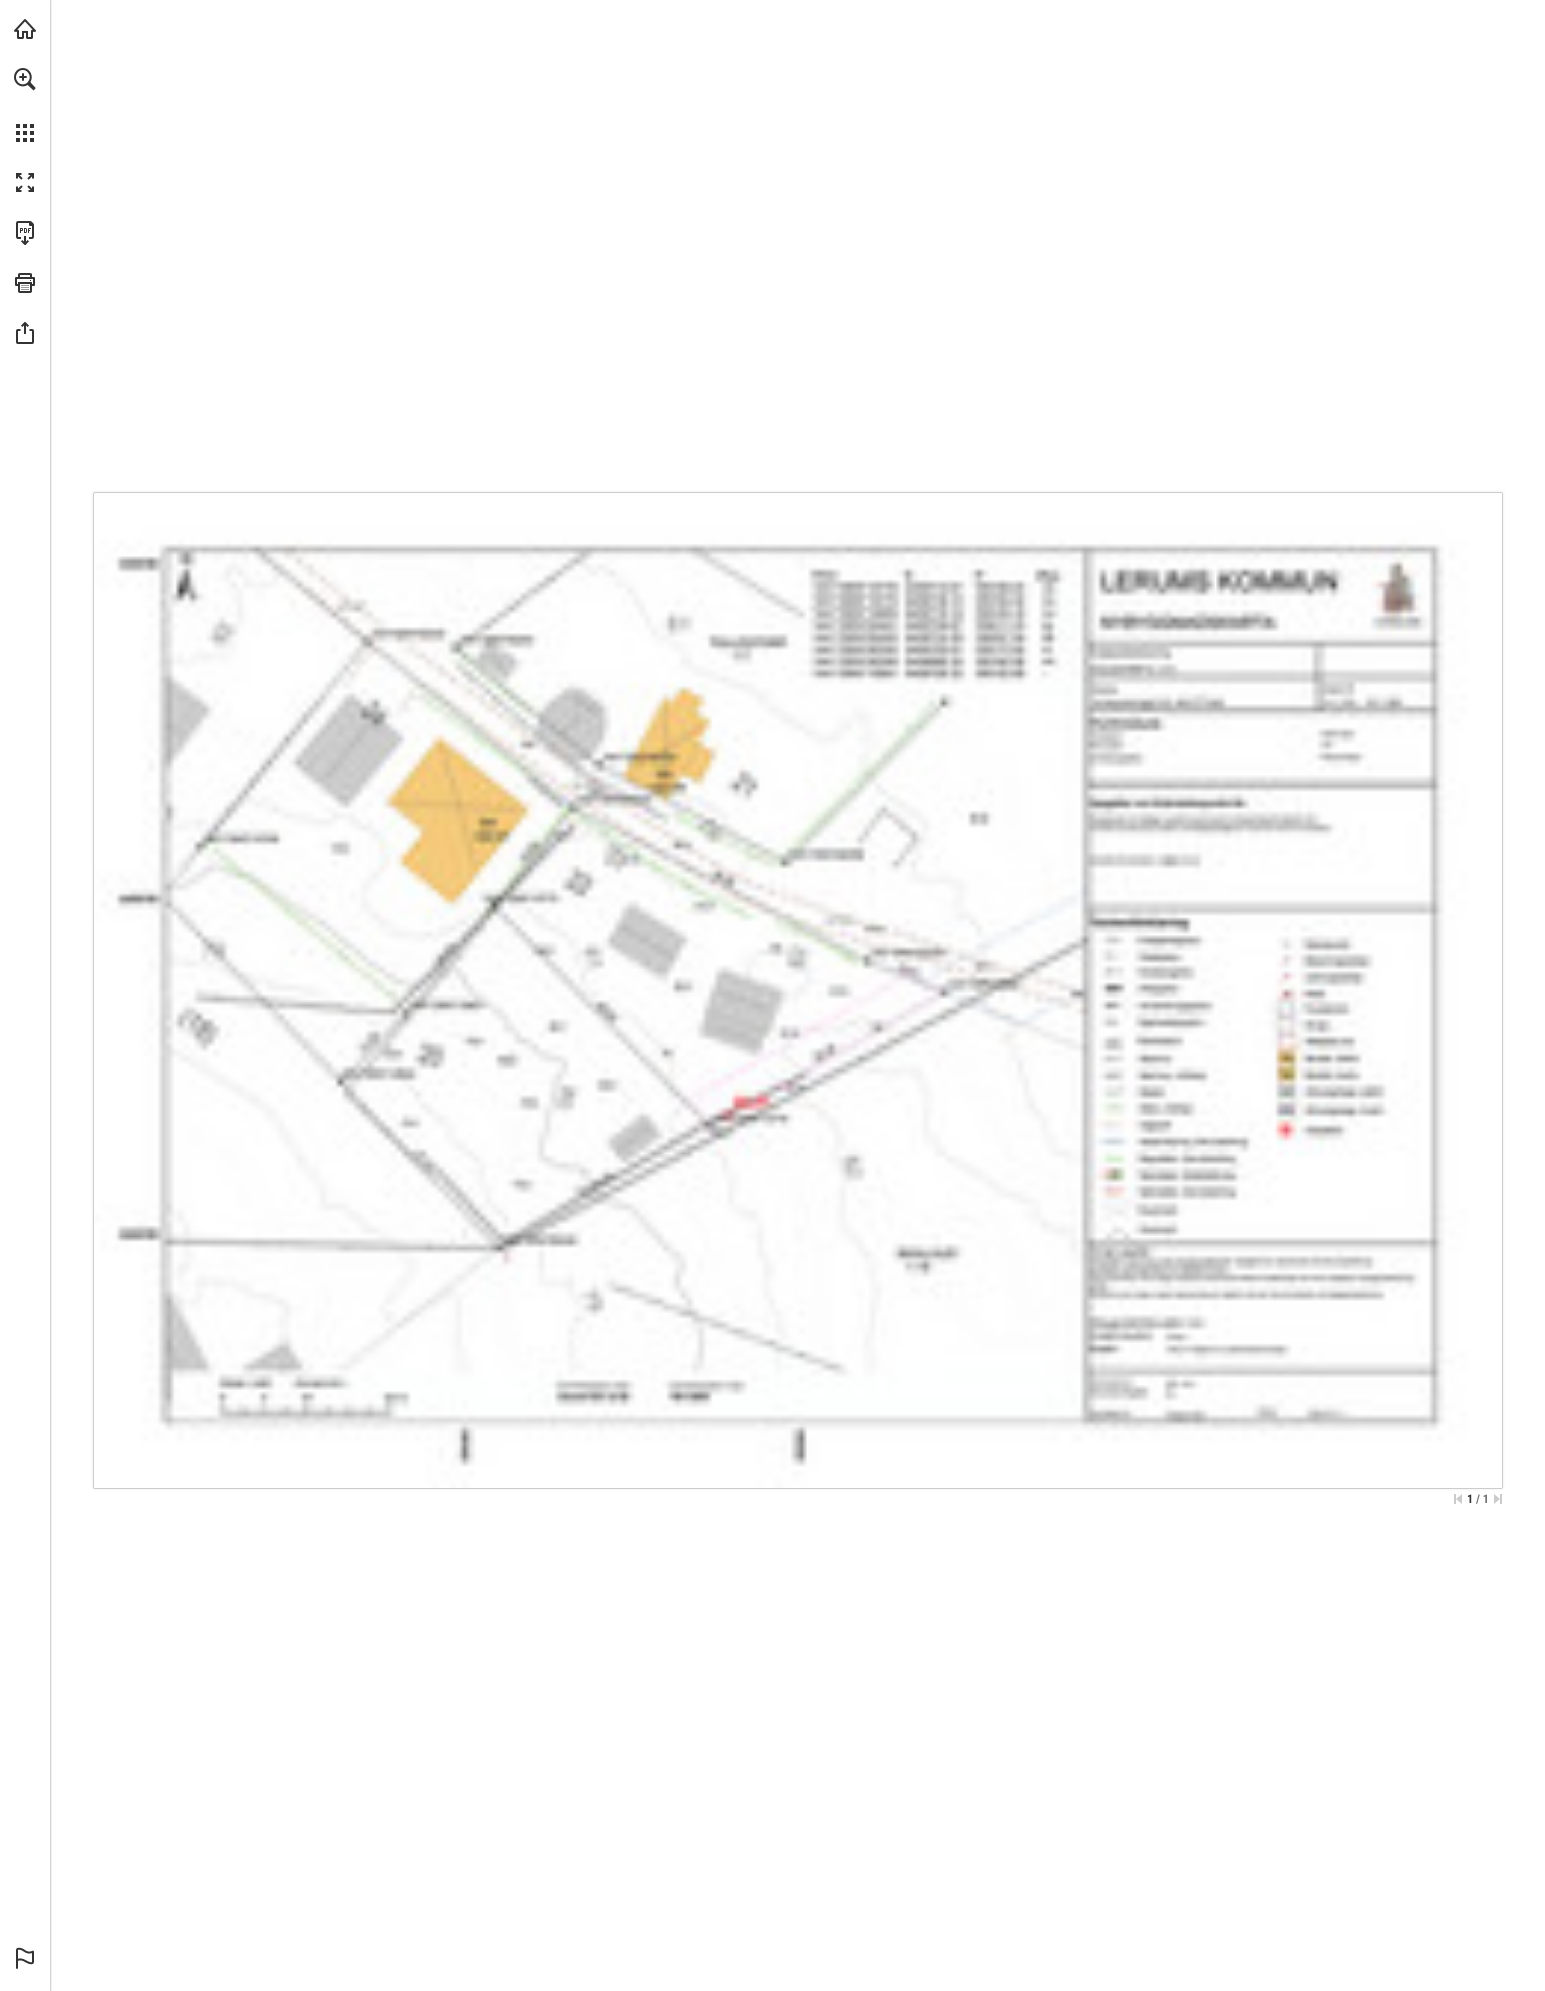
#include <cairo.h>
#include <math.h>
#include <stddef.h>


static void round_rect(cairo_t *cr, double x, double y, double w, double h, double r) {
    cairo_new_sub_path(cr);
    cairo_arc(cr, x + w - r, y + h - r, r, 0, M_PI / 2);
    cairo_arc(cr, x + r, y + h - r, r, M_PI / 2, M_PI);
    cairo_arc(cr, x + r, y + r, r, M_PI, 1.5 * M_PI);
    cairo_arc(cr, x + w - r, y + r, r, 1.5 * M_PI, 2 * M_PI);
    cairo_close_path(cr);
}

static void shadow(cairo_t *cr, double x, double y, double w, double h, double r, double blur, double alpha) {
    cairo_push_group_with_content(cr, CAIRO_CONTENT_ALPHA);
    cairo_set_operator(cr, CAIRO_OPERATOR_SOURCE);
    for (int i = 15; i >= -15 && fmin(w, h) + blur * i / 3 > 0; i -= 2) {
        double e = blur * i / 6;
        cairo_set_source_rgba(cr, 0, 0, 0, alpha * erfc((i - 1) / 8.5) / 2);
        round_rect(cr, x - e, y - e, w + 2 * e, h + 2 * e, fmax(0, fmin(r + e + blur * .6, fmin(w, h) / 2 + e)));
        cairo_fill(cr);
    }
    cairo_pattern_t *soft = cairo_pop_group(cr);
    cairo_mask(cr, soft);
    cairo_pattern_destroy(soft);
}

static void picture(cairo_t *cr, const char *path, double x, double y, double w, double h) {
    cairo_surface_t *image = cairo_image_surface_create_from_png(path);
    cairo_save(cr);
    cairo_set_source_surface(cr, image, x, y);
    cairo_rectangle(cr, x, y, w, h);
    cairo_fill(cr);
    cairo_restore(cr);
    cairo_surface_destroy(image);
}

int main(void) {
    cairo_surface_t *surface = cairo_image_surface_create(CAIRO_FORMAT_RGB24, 1545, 1991);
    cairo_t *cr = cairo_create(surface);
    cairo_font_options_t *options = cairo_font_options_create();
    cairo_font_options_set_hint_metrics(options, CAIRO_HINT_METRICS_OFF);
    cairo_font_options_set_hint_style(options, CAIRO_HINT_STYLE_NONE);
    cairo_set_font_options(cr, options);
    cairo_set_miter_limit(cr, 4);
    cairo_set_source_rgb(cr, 1, 1, 1);
    cairo_paint(cr);
    cairo_set_source_rgb(cr, 0, 0, 0);
    shadow(cr, 1, 0, 50, 1991, 0, 0.5, 0.2);
    cairo_set_source_rgb(cr, 1, 1, 1);
    cairo_rectangle(cr, 0, 0, 50, 1991);
    cairo_fill(cr);
    picture(cr, "img1.png", 14, 19, 22, 20);
    picture(cr, "img2.png", 14, 68, 22, 23);
    picture(cr, "img3.png", 16, 124, 18, 18);
    picture(cr, "img4.png", 16, 173, 18, 19);
    picture(cr, "img5.png", 16, 221, 18, 24);
    picture(cr, "img6.png", 15, 273, 20, 20);
    picture(cr, "img7.png", 16, 322, 18, 22);
    picture(cr, "img8.png", 16, 1947, 18, 22);
    cairo_set_source_rgb(cr, 0.071, 0.071, 0.071);
    shadow(cr, 92, 491, 1412, 999, 3, 1, 0.05);
    cairo_set_source_rgb(cr, 1, 1, 1);
    round_rect(cr, 93.5, 492.5, 1409, 996, 1.5);
    cairo_fill_preserve(cr);
    cairo_set_source_rgb(cr, 0.8, 0.8, 0.8);
    cairo_set_line_width(cr, 1);
    cairo_stroke(cr);
    picture(cr, "img9.png", 95, 493, 1407, 995);
    picture(cr, "img10.png", 1454, 1494, 8, 10);
    cairo_select_font_face(cr, "Roboto Condensed", CAIRO_FONT_SLANT_NORMAL, CAIRO_FONT_WEIGHT_BOLD);
    cairo_set_font_size(cr, 12);
    cairo_set_source_rgb(cr, 0.2, 0.2, 0.2);
    cairo_move_to(cr, 1467, 1503);
    cairo_show_text(cr, "1");
    cairo_set_source_rgb(cr, 0.439, 0.439, 0.439);
    cairo_move_to(cr, 1476, 1503);
    cairo_show_text(cr, "/ 1");
    picture(cr, "img11.png", 1494, 1494, 8, 10);
    cairo_surface_write_to_png(surface, "page.png");
    cairo_font_options_destroy(options);
    cairo_destroy(cr);
    cairo_surface_destroy(surface);
    return 0;
}
